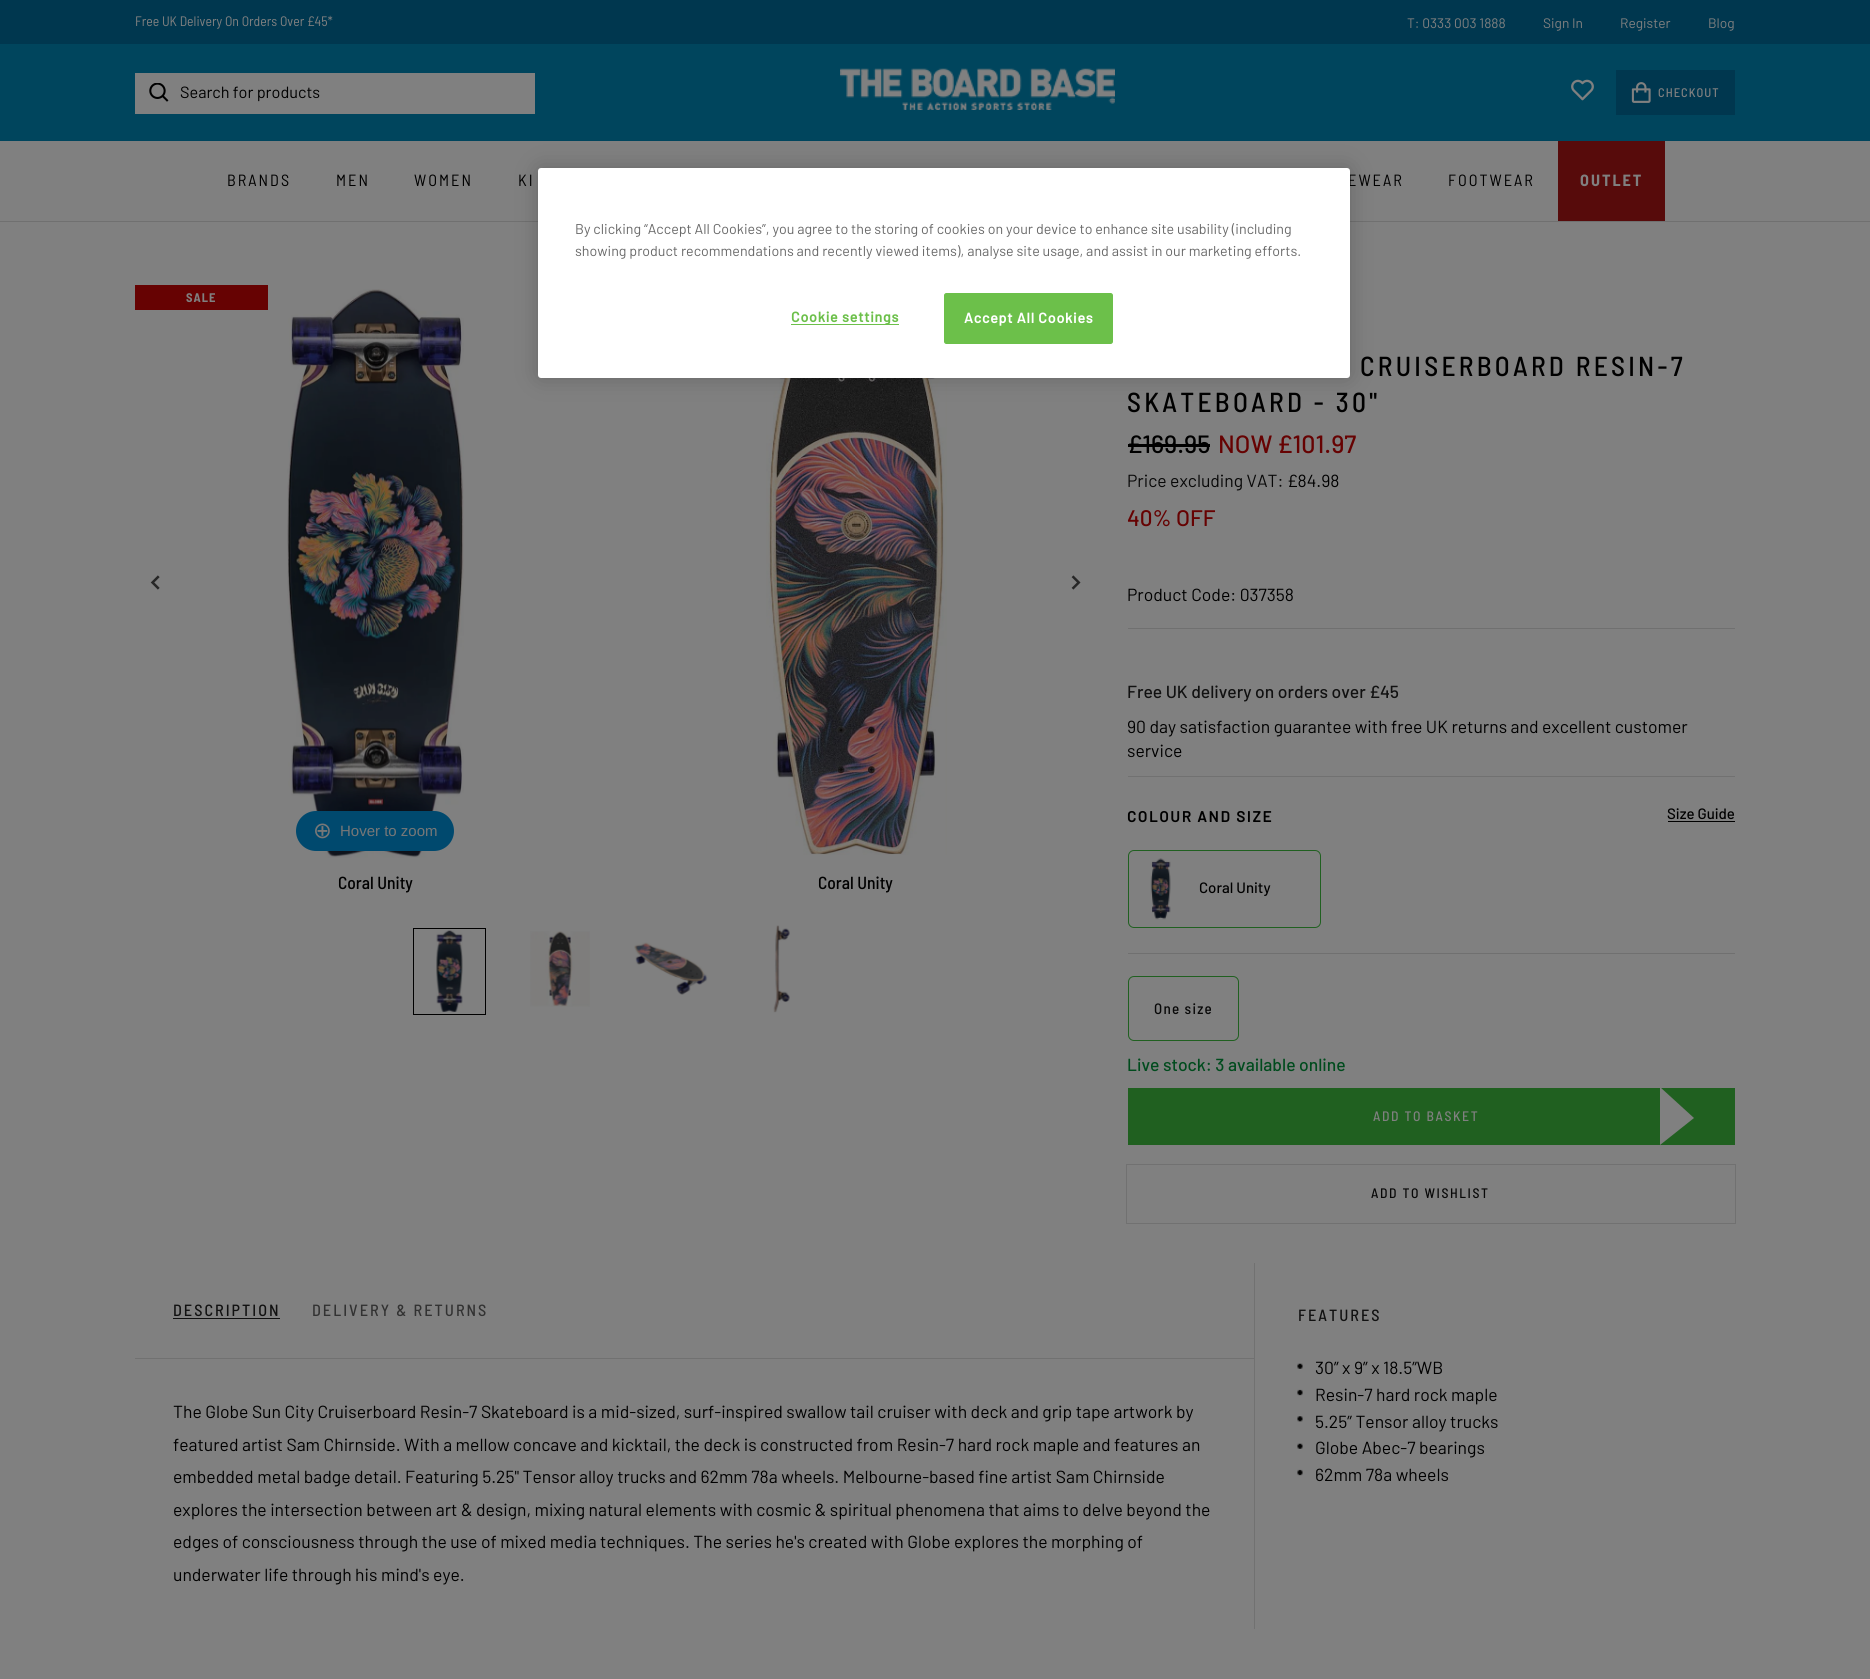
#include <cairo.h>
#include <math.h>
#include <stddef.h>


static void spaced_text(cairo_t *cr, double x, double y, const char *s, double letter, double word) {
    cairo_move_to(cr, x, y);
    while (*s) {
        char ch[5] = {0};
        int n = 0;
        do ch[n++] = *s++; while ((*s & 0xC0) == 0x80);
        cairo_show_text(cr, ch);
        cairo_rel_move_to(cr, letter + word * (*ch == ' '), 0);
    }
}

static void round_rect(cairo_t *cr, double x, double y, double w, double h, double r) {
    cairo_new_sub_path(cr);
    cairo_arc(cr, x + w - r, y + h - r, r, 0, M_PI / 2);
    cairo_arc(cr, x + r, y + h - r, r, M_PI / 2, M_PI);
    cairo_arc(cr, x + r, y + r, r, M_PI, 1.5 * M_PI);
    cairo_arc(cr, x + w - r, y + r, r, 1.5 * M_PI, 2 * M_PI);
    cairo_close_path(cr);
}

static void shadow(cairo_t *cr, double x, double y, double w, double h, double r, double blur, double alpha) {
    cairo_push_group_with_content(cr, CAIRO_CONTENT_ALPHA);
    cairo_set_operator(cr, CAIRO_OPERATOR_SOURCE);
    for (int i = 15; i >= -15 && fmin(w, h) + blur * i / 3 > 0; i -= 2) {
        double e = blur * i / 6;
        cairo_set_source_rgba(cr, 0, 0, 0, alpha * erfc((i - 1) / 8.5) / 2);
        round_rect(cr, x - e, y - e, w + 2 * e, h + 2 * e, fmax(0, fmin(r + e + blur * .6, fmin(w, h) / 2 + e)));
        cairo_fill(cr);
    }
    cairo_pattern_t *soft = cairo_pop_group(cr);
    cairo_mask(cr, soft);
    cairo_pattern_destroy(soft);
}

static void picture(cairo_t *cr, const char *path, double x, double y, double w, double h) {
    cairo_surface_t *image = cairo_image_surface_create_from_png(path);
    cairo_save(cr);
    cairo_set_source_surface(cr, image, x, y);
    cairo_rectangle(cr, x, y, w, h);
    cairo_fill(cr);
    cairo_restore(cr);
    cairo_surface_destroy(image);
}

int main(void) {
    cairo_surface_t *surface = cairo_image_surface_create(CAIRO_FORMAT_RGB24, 1870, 1679);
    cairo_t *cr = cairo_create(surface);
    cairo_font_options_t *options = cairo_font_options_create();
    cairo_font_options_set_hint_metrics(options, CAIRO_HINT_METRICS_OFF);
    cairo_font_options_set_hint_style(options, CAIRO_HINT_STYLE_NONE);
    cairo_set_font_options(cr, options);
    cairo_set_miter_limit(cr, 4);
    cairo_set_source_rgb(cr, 0.502, 0.502, 0.502);
    cairo_paint(cr);
    cairo_set_source_rgb(cr, 0.439, 0.439, 0.439);
    cairo_rectangle(cr, 0, 221, 1870, 1);
    cairo_fill(cr);
    cairo_set_source_rgb(cr, 0, 0.271, 0.365);
    cairo_rectangle(cr, 0, 44, 1870, 97);
    cairo_fill(cr);
    cairo_set_source_rgb(cr, 0, 0.216, 0.31);
    cairo_rectangle(cr, 0, 0, 1870, 44);
    cairo_fill(cr);
    cairo_select_font_face(cr, "Barlow Semi Condensed", CAIRO_FONT_SLANT_NORMAL, CAIRO_FONT_WEIGHT_NORMAL);
    cairo_set_font_size(cr, 13.75);
    cairo_set_source_rgb(cr, 0.502, 0.502, 0.502);
    cairo_move_to(cr, 135, 26);
    cairo_show_text(cr, "Free UK Delivery On Orders Over £45*");
    cairo_select_font_face(cr, "Barlow", CAIRO_FONT_SLANT_NORMAL, CAIRO_FONT_WEIGHT_NORMAL);
    cairo_move_to(cr, 1407, 28);
    cairo_show_text(cr, "T: 0333 003 1888");
    cairo_move_to(cr, 1543, 28);
    cairo_show_text(cr, "Sign In");
    cairo_move_to(cr, 1620, 28);
    cairo_show_text(cr, "Register");
    cairo_move_to(cr, 1708, 28);
    cairo_show_text(cr, "Blog");
    cairo_rectangle(cr, 135, 73, 400, 41);
    cairo_fill(cr);
    picture(cr, "img1.png", 149, 83, 20, 19);
    cairo_set_font_size(cr, 16.25);
    cairo_set_source_rgb(cr, 0, 0, 0);
    cairo_move_to(cr, 180, 98);
    cairo_show_text(cr, "Search for products");
    picture(cr, "img2.png", 840, 68, 275, 42);
    picture(cr, "img3.png", 1571, 79, 23, 22);
    cairo_set_source_rgb(cr, 0, 0.216, 0.31);
    cairo_rectangle(cr, 1616, 70, 119, 45);
    cairo_fill(cr);
    picture(cr, "img4.png", 1631, 82, 20, 21);
    cairo_select_font_face(cr, "Barlow Semi Condensed Medium", CAIRO_FONT_SLANT_NORMAL, CAIRO_FONT_WEIGHT_NORMAL);
    cairo_set_font_size(cr, 12.5);
    cairo_set_source_rgb(cr, 0.502, 0.502, 0.502);
    spaced_text(cr, 1658, 97, "CHECKOUT", 1, 0);
    cairo_select_font_face(cr, "Barlow Semi Condensed", CAIRO_FONT_SLANT_NORMAL, CAIRO_FONT_WEIGHT_NORMAL);
    cairo_set_font_size(cr, 16.25);
    cairo_set_source_rgb(cr, 0, 0, 0);
    spaced_text(cr, 227, 186, "BRANDS", 2, 0);
    spaced_text(cr, 336, 186, "MEN", 2, 0);
    spaced_text(cr, 414, 186, "WOMEN", 2, 0);
    spaced_text(cr, 518, 186, "KI", 2, 0);
    spaced_text(cr, 1348, 186, "EWEAR", 2, 0);
    spaced_text(cr, 1448, 186, "FOOTWEAR", 2, 0);
    cairo_set_source_rgb(cr, 0.341, 0.043, 0.043);
    cairo_rectangle(cr, 1558, 141, 107, 80);
    cairo_fill(cr);
    cairo_select_font_face(cr, "Barlow Semi Condensed", CAIRO_FONT_SLANT_NORMAL, CAIRO_FONT_WEIGHT_BOLD);
    cairo_set_source_rgb(cr, 0.502, 0.502, 0.502);
    spaced_text(cr, 1580, 186, "OUTLET", 2, 0);
    cairo_set_source_rgb(cr, 0.4, 0.008, 0.008);
    cairo_rectangle(cr, 135, 285, 133, 25);
    cairo_fill(cr);
    cairo_set_font_size(cr, 12.5);
    cairo_set_source_rgb(cr, 0.502, 0.502, 0.502);
    spaced_text(cr, 186, 302, "SALE", 1, 0);
    picture(cr, "img5.png", 150, 575, 10, 15);
    picture(cr, "img6.png", 1071, 575, 10, 15);
    picture(cr, "img7.png", 287, 289, 177, 569);
    cairo_set_source_rgb(cr, 0, 0.286, 0.431);
    round_rect(cr, 296, 811, 158, 40, 20);
    cairo_fill(cr);
    cairo_select_font_face(cr, "DejaVu Sans", CAIRO_FONT_SLANT_NORMAL, CAIRO_FONT_WEIGHT_NORMAL);
    cairo_set_font_size(cr, 22.5);
    cairo_set_source_rgb(cr, 0.467, 0.467, 0.467);
    cairo_move_to(cr, 313, 838);
    cairo_show_text(cr, "⊕");
    cairo_select_font_face(cr, "Liberation Sans", CAIRO_FONT_SLANT_NORMAL, CAIRO_FONT_WEIGHT_NORMAL);
    cairo_set_font_size(cr, 15);
    cairo_move_to(cr, 340, 836);
    cairo_show_text(cr, "Hover to zoom");
    cairo_select_font_face(cr, "Barlow Semi Condensed Medium", CAIRO_FONT_SLANT_NORMAL, CAIRO_FONT_WEIGHT_NORMAL);
    cairo_set_font_size(cr, 17.5);
    cairo_set_source_rgb(cr, 0, 0, 0);
    cairo_move_to(cr, 338, 889);
    cairo_show_text(cr, "Coral Unity");
    picture(cr, "img8.png", 766, 378, 181, 477);
    cairo_move_to(cr, 818, 889);
    cairo_show_text(cr, "Coral Unity");
    cairo_rectangle(cr, 413.5, 928.5, 72, 86);
    cairo_set_line_width(cr, 1);
    cairo_stroke(cr);
    picture(cr, "img9.png", 436, 930, 27, 82);
    picture(cr, "img10.png", 530, 931, 60, 76);
    picture(cr, "img11.png", 634, 942, 74, 53);
    picture(cr, "img12.png", 773, 925, 17, 88);
    cairo_set_font_size(cr, 27.5);
    spaced_text(cr, 1360, 376, "CRUISERBOARD RESIN-7", 3.25, 0);
    spaced_text(cr, 1127, 412, "SKATEBOARD - 30\"", 3.25, 0);
    cairo_select_font_face(cr, "Barlow Medium", CAIRO_FONT_SLANT_NORMAL, CAIRO_FONT_WEIGHT_NORMAL);
    cairo_set_font_size(cr, 25);
    cairo_move_to(cr, 1127, 453);
    cairo_show_text(cr, "£169.95");
    cairo_rectangle(cr, 1128, 444, 82, 3);
    cairo_fill(cr);
    cairo_set_source_rgb(cr, 0.4, 0.008, 0.008);
    cairo_move_to(cr, 1218, 453);
    cairo_show_text(cr, "NOW £101.97");
    cairo_select_font_face(cr, "Barlow", CAIRO_FONT_SLANT_NORMAL, CAIRO_FONT_WEIGHT_NORMAL);
    cairo_set_font_size(cr, 17.5);
    cairo_set_source_rgb(cr, 0.035, 0.035, 0.035);
    cairo_move_to(cr, 1127, 487);
    cairo_show_text(cr, "Price excluding VAT:");
    cairo_set_source_rgb(cr, 0, 0, 0);
    cairo_move_to(cr, 1287, 487);
    cairo_show_text(cr, "£84.98");
    cairo_select_font_face(cr, "Barlow Medium", CAIRO_FONT_SLANT_NORMAL, CAIRO_FONT_WEIGHT_NORMAL);
    cairo_set_font_size(cr, 22.5);
    cairo_set_source_rgb(cr, 0.4, 0.008, 0.008);
    cairo_move_to(cr, 1127, 526);
    cairo_show_text(cr, "40% OFF");
    cairo_select_font_face(cr, "Barlow", CAIRO_FONT_SLANT_NORMAL, CAIRO_FONT_WEIGHT_NORMAL);
    cairo_set_font_size(cr, 17.5);
    cairo_set_source_rgb(cr, 0, 0, 0);
    cairo_move_to(cr, 1127, 601);
    cairo_show_text(cr, "Product Code: 037358");
    cairo_set_source_rgb(cr, 0.439, 0.439, 0.439);
    cairo_rectangle(cr, 1128, 628, 607, 1);
    cairo_fill(cr);
    cairo_select_font_face(cr, "Barlow Medium", CAIRO_FONT_SLANT_NORMAL, CAIRO_FONT_WEIGHT_NORMAL);
    cairo_set_source_rgb(cr, 0.067, 0.067, 0.067);
    cairo_move_to(cr, 1127, 698);
    cairo_show_text(cr, "Free UK delivery on orders over £45");
    cairo_select_font_face(cr, "Barlow", CAIRO_FONT_SLANT_NORMAL, CAIRO_FONT_WEIGHT_NORMAL);
    cairo_set_source_rgb(cr, 0, 0, 0);
    cairo_move_to(cr, 1127, 733);
    cairo_show_text(cr, "90 day satisfaction guarantee with free UK returns and excellent customer");
    cairo_move_to(cr, 1127, 757);
    cairo_show_text(cr, "service");
    cairo_set_source_rgb(cr, 0.443, 0.443, 0.443);
    cairo_rectangle(cr, 1128, 776, 607, 1);
    cairo_fill(cr);
    cairo_select_font_face(cr, "Barlow", CAIRO_FONT_SLANT_NORMAL, CAIRO_FONT_WEIGHT_BOLD);
    cairo_set_font_size(cr, 15);
    cairo_set_source_rgb(cr, 0, 0, 0);
    spaced_text(cr, 1127, 822, "COLOUR AND SIZE", 1.75, 0);
    cairo_select_font_face(cr, "Barlow Medium", CAIRO_FONT_SLANT_NORMAL, CAIRO_FONT_WEIGHT_NORMAL);
    cairo_move_to(cr, 1667, 819);
    cairo_show_text(cr, "Size Guide");
    cairo_rectangle(cr, 1668, 821, 67, 1);
    cairo_fill(cr);
    round_rect(cr, 1128.5, 850.5, 192, 77, 5.5);
    cairo_set_source_rgb(cr, 0.125, 0.376, 0.125);
    cairo_stroke(cr);
    picture(cr, "img13.png", 1150, 858, 21, 62);
    cairo_set_source_rgb(cr, 0, 0, 0);
    cairo_move_to(cr, 1199, 893);
    cairo_show_text(cr, "Coral Unity");
    cairo_set_source_rgb(cr, 0.439, 0.439, 0.439);
    cairo_rectangle(cr, 1128, 953, 607, 1);
    cairo_fill(cr);
    round_rect(cr, 1128.5, 976.5, 110, 64, 5.5);
    cairo_set_source_rgb(cr, 0.125, 0.376, 0.125);
    cairo_stroke(cr);
    cairo_select_font_face(cr, "Barlow Semi Condensed Medium", CAIRO_FONT_SLANT_NORMAL, CAIRO_FONT_WEIGHT_NORMAL);
    cairo_set_source_rgb(cr, 0.035, 0.035, 0.035);
    spaced_text(cr, 1154, 1014, "One size", 1.25, 0);
    cairo_select_font_face(cr, "Barlow Medium", CAIRO_FONT_SLANT_NORMAL, CAIRO_FONT_WEIGHT_NORMAL);
    cairo_set_font_size(cr, 17.5);
    cairo_set_source_rgb(cr, 0, 0.294, 0.114);
    cairo_move_to(cr, 1127, 1071);
    cairo_show_text(cr, "Live stock: 3 available online");
    cairo_set_source_rgb(cr, 0.125, 0.376, 0.125);
    cairo_rectangle(cr, 1128, 1088, 607, 57);
    cairo_fill(cr);
    cairo_set_source_rgb(cr, 0.502, 0.502, 0.502);
    cairo_set_fill_rule(cr, CAIRO_FILL_RULE_EVEN_ODD);
    cairo_new_path(cr);
    cairo_move_to(cr, 1660, 1145);
    cairo_line_to(cr, 1660, 1087);
    cairo_line_to(cr, 1694, 1118);
    cairo_close_path(cr);
    cairo_fill(cr);
    cairo_select_font_face(cr, "Barlow Semi Condensed Medium", CAIRO_FONT_SLANT_NORMAL, CAIRO_FONT_WEIGHT_NORMAL);
    cairo_set_font_size(cr, 13.75);
    spaced_text(cr, 1373, 1121, "ADD TO BASKET", 1.6, 0);
    cairo_rectangle(cr, 1126.5, 1164.5, 609, 59);
    cairo_set_source_rgb(cr, 0.443, 0.443, 0.443);
    cairo_stroke(cr);
    cairo_set_source_rgb(cr, 0.035, 0.035, 0.035);
    spaced_text(cr, 1371, 1198, "ADD TO WISHLIST", 1.6, 0);
    cairo_set_source_rgb(cr, 0.443, 0.443, 0.443);
    cairo_rectangle(cr, 1254, 1263, 1, 366);
    cairo_fill(cr);
    cairo_rectangle(cr, 135, 1358, 1119, 1);
    cairo_fill(cr);
    cairo_set_font_size(cr, 16.25);
    cairo_set_source_rgb(cr, 0.067, 0.067, 0.067);
    spaced_text(cr, 173, 1316, "DESCRIPTION", 2, 0);
    cairo_rectangle(cr, 173, 1318, 107, 1);
    cairo_fill(cr);
    cairo_set_source_rgb(cr, 0.196, 0.196, 0.196);
    spaced_text(cr, 312, 1316, "DELIVERY & RETURNS", 2, 0);
    cairo_select_font_face(cr, "Barlow", CAIRO_FONT_SLANT_NORMAL, CAIRO_FONT_WEIGHT_NORMAL);
    cairo_set_font_size(cr, 17.5);
    cairo_set_source_rgb(cr, 0, 0, 0);
    cairo_move_to(cr, 173, 1418);
    cairo_show_text(cr, "The Globe Sun City Cruiserboard Resin-7 Skateboard is a mid-sized, surf-inspired swallow tail cruiser with deck and grip tape artwork by");
    cairo_move_to(cr, 173, 1451);
    cairo_show_text(cr, "featured artist Sam Chirnside. With a mellow concave and kicktail, the deck is constructed from Resin-7 hard rock maple and features an");
    cairo_move_to(cr, 173, 1483);
    cairo_show_text(cr, "embedded metal badge detail. Featuring 5.25\" Tensor alloy trucks and 62mm 78a wheels. Melbourne-based fine artist Sam Chirnside");
    cairo_move_to(cr, 173, 1516);
    cairo_show_text(cr, "explores the intersection between art & design, mixing natural elements with cosmic & spiritual phenomena that aims to delve beyond the");
    cairo_move_to(cr, 173, 1548);
    cairo_show_text(cr, "edges of consciousness through the use of mixed media techniques. The series he's created with Globe explores the morphing of");
    cairo_move_to(cr, 173, 1581);
    cairo_show_text(cr, "underwater life through his mind's eye.");
    cairo_select_font_face(cr, "Barlow Semi Condensed Medium", CAIRO_FONT_SLANT_NORMAL, CAIRO_FONT_WEIGHT_NORMAL);
    cairo_set_font_size(cr, 16.25);
    cairo_set_source_rgb(cr, 0.067, 0.067, 0.067);
    spaced_text(cr, 1298, 1321, "FEATURES", 2, 0);
    picture(cr, "img14.png", 1297, 1363, 6, 6);
    cairo_select_font_face(cr, "Barlow", CAIRO_FONT_SLANT_NORMAL, CAIRO_FONT_WEIGHT_NORMAL);
    cairo_set_font_size(cr, 17.5);
    cairo_set_source_rgb(cr, 0, 0, 0);
    cairo_move_to(cr, 1315, 1374);
    cairo_show_text(cr, "30” x 9” x 18.5”WB");
    picture(cr, "img15.png", 1297, 1389, 6, 7);
    cairo_move_to(cr, 1315, 1401);
    cairo_show_text(cr, "Resin-7 hard rock maple");
    picture(cr, "img16.png", 1297, 1416, 6, 6);
    cairo_move_to(cr, 1315, 1428);
    cairo_show_text(cr, "5.25” Tensor alloy trucks");
    picture(cr, "img14.png", 1297, 1443, 6, 6);
    cairo_move_to(cr, 1315, 1454);
    cairo_show_text(cr, "Globe Abec-7 bearings");
    picture(cr, "img15.png", 1297, 1469, 6, 7);
    cairo_move_to(cr, 1315, 1481);
    cairo_show_text(cr, "62mm 78a wheels");
    cairo_set_source_rgb(cr, 0, 0, 0);
    shadow(cr, 538, 168, 812, 210, 3, 11, 0.2);
    cairo_set_source_rgb(cr, 1, 1, 1);
    round_rect(cr, 538, 168, 812, 210, 3);
    cairo_fill(cr);
    cairo_set_font_size(cr, 14.23);
    cairo_set_source_rgb(cr, 0.412, 0.412, 0.412);
    cairo_move_to(cr, 575, 234);
    cairo_show_text(cr, "By clicking “Accept All Cookies”, you agree to the storing of cookies on your device to enhance site usability (including");
    cairo_move_to(cr, 575, 256);
    cairo_show_text(cr, "showing product recommendations and recently viewed items), analyse site usage, and assist in our marketing efforts.");
    cairo_set_source_rgb(cr, 0.424, 0.753, 0.29);
    cairo_rectangle(cr, 791, 324, 108, 1);
    cairo_fill(cr);
    cairo_select_font_face(cr, "Barlow", CAIRO_FONT_SLANT_NORMAL, CAIRO_FONT_WEIGHT_BOLD);
    spaced_text(cr, 791, 322, "Cookie settings", 0.75, 0);
    round_rect(cr, 944.5, 293.5, 168, 50, 2);
    cairo_fill_preserve(cr);
    cairo_stroke(cr);
    cairo_set_source_rgb(cr, 1, 1, 1);
    spaced_text(cr, 964, 323, "Accept All Cookies", 0.75, 0);
    cairo_surface_write_to_png(surface, "page.png");
    cairo_font_options_destroy(options);
    cairo_destroy(cr);
    cairo_surface_destroy(surface);
    return 0;
}
